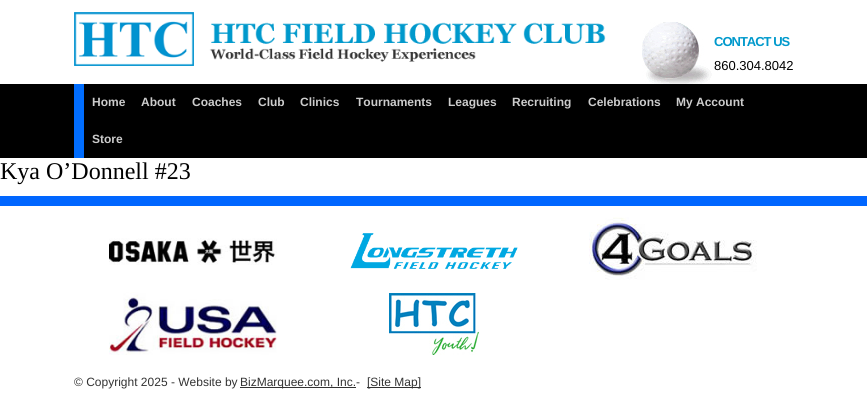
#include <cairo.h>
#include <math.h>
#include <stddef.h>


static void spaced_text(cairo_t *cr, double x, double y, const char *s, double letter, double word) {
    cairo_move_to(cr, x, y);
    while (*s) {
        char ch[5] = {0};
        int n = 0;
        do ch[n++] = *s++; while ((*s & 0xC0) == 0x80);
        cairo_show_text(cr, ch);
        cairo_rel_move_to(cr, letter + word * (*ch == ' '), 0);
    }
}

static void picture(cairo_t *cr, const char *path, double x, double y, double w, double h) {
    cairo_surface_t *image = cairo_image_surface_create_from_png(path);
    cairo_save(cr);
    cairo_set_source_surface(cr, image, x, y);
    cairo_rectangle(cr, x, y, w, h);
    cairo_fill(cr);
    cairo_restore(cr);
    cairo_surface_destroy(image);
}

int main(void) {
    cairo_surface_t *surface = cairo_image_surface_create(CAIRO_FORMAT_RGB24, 867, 404);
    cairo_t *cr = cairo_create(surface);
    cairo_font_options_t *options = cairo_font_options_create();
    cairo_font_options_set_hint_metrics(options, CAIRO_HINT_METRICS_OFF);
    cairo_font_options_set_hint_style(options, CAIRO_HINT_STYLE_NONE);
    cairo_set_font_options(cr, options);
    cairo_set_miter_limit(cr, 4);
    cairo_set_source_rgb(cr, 1, 1, 1);
    cairo_paint(cr);
    picture(cr, "img1.png", 74, 12, 532, 54);
    picture(cr, "img2.png", 642, 22, 70, 62);
    cairo_select_font_face(cr, "Liberation Sans", CAIRO_FONT_SLANT_NORMAL, CAIRO_FONT_WEIGHT_BOLD);
    cairo_set_font_size(cr, 13);
    cairo_set_source_rgb(cr, 0, 0.6, 0.8);
    spaced_text(cr, 714, 46, "CONTACT US", -1, 0);
    cairo_select_font_face(cr, "Liberation Sans", CAIRO_FONT_SLANT_NORMAL, CAIRO_FONT_WEIGHT_NORMAL);
    cairo_set_source_rgb(cr, 0, 0, 0);
    cairo_move_to(cr, 714, 70);
    cairo_show_text(cr, "860.304.8042");
    cairo_rectangle(cr, 0, 84, 867, 74);
    cairo_fill(cr);
    cairo_set_source_rgb(cr, 0, 0.427, 1);
    cairo_rectangle(cr, 74, 84, 10, 74);
    cairo_fill(cr);
    cairo_select_font_face(cr, "Liberation Sans", CAIRO_FONT_SLANT_NORMAL, CAIRO_FONT_WEIGHT_BOLD);
    cairo_set_font_size(cr, 12);
    cairo_set_source_rgb(cr, 0.8, 0.8, 0.8);
    cairo_move_to(cr, 92, 106);
    cairo_show_text(cr, "Home");
    cairo_move_to(cr, 141, 106);
    cairo_show_text(cr, "About");
    cairo_move_to(cr, 192, 106);
    cairo_show_text(cr, "Coaches");
    cairo_move_to(cr, 258, 106);
    cairo_show_text(cr, "Club");
    cairo_move_to(cr, 300, 106);
    cairo_show_text(cr, "Clinics");
    cairo_move_to(cr, 356, 106);
    cairo_show_text(cr, "Tournaments");
    cairo_move_to(cr, 448, 106);
    cairo_show_text(cr, "Leagues");
    cairo_move_to(cr, 512, 106);
    cairo_show_text(cr, "Recruiting");
    cairo_move_to(cr, 588, 106);
    cairo_show_text(cr, "Celebrations");
    cairo_move_to(cr, 676, 106);
    cairo_show_text(cr, "My Account");
    cairo_move_to(cr, 92, 143);
    cairo_show_text(cr, "Store");
    cairo_select_font_face(cr, "Liberation Serif", CAIRO_FONT_SLANT_NORMAL, CAIRO_FONT_WEIGHT_NORMAL);
    cairo_set_font_size(cr, 24);
    cairo_set_source_rgb(cr, 0, 0, 0);
    cairo_move_to(cr, 0, 179);
    cairo_show_text(cr, "Kya O’Donnell #23");
    cairo_set_source_rgb(cr, 0, 0.4, 1);
    cairo_rectangle(cr, 0, 196, 867, 10);
    cairo_fill(cr);
    picture(cr, "img3.png", 109, 238, 168, 27);
    picture(cr, "img4.png", 350, 233, 168, 36);
    picture(cr, "img5.png", 589, 217, 168, 63);
    picture(cr, "img6.png", 109, 292, 168, 63);
    picture(cr, "img7.png", 389, 293, 90, 62);
    cairo_select_font_face(cr, "Liberation Sans", CAIRO_FONT_SLANT_NORMAL, CAIRO_FONT_WEIGHT_NORMAL);
    cairo_set_font_size(cr, 12);
    cairo_set_source_rgb(cr, 0.2, 0.2, 0.2);
    cairo_move_to(cr, 74, 386);
    cairo_show_text(cr, "© Copyright 2025 - Website by");
    cairo_rectangle(cr, 240, 387, 116, 1);
    cairo_fill(cr);
    cairo_move_to(cr, 240, 386);
    cairo_show_text(cr, "BizMarquee.com, Inc.-");
    cairo_rectangle(cr, 367, 387, 54, 1);
    cairo_fill(cr);
    cairo_move_to(cr, 367, 386);
    cairo_show_text(cr, "[Site Map]");
    cairo_surface_write_to_png(surface, "page.png");
    cairo_font_options_destroy(options);
    cairo_destroy(cr);
    cairo_surface_destroy(surface);
    return 0;
}
